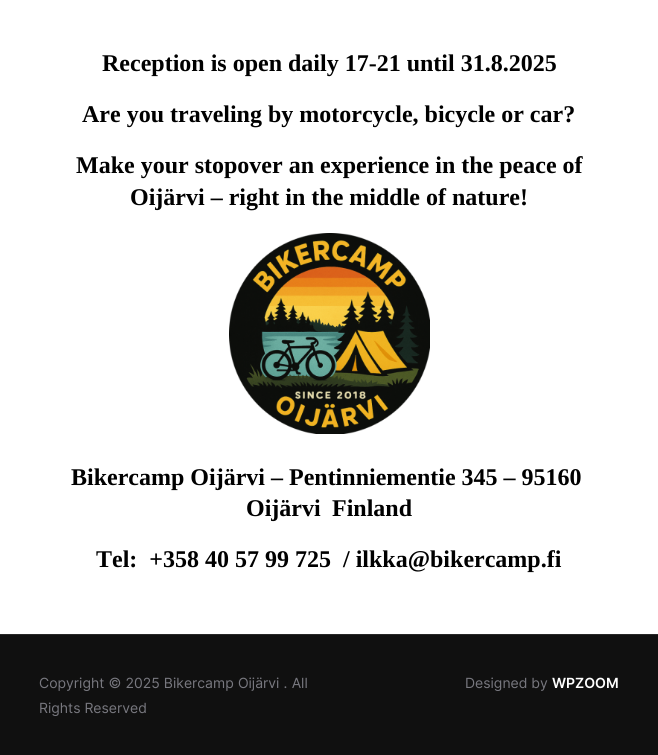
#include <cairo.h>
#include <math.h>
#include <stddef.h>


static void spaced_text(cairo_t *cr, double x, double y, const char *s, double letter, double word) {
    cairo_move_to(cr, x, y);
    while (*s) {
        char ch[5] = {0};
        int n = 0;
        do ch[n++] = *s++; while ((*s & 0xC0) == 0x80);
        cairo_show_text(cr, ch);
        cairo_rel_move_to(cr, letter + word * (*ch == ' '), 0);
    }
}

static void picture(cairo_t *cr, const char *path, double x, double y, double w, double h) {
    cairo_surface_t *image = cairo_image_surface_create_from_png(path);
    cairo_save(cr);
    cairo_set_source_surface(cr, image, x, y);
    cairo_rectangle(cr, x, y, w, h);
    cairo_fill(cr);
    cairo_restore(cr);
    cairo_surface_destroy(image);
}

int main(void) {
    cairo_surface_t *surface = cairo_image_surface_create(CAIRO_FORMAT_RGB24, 658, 755);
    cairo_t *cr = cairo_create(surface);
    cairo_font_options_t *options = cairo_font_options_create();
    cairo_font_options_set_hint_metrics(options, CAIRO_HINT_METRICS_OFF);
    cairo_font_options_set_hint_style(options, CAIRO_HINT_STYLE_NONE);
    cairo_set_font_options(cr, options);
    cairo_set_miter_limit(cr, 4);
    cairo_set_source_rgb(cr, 1, 1, 1);
    cairo_paint(cr);
    cairo_select_font_face(cr, "Liberation Serif", CAIRO_FONT_SLANT_NORMAL, CAIRO_FONT_WEIGHT_BOLD);
    cairo_set_font_size(cr, 24);
    cairo_set_source_rgb(cr, 0, 0, 0);
    cairo_move_to(cr, 102, 71);
    cairo_show_text(cr, "Reception is open daily 17-21 until 31.8.2025");
    cairo_move_to(cr, 82, 122);
    cairo_show_text(cr, "Are you traveling by motorcycle, bicycle or car?");
    cairo_move_to(cr, 76, 173);
    cairo_show_text(cr, "Make your stopover an experience in the peace of");
    cairo_move_to(cr, 130, 205);
    cairo_show_text(cr, "Oijärvi – right in the middle of nature!");
    picture(cr, "img1.png", 229, 233, 201, 201);
    cairo_move_to(cr, 71, 485);
    cairo_show_text(cr, "Bikercamp Oijärvi – Pentinniementie 345 – 95160");
    cairo_move_to(cr, 246, 516);
    cairo_show_text(cr, "Oijärvi");
    cairo_move_to(cr, 332, 516);
    cairo_show_text(cr, "Finland");
    cairo_move_to(cr, 96, 567);
    cairo_show_text(cr, "Tel:  +358 40 57 99 725  / ilkka@bikercamp.fi");
    cairo_set_source_rgb(cr, 0.063, 0.063, 0.063);
    cairo_rectangle(cr, 0, 635, 658, 120);
    cairo_fill(cr);
    cairo_set_source_rgb(cr, 0.157, 0.157, 0.157);
    cairo_rectangle(cr, 0, 634, 658, 1);
    cairo_fill(cr);
    cairo_select_font_face(cr, "Inter", CAIRO_FONT_SLANT_NORMAL, CAIRO_FONT_WEIGHT_NORMAL);
    cairo_set_font_size(cr, 14);
    cairo_set_source_rgb(cr, 0.471, 0.471, 0.498);
    spaced_text(cr, 39, 688, "Copyright © 2025 Bikercamp Oijärvi . All", 0, 0.25);
    cairo_move_to(cr, 39, 713);
    cairo_show_text(cr, "Rights Reserved");
    cairo_move_to(cr, 465, 688);
    cairo_show_text(cr, "Designed by");
    cairo_select_font_face(cr, "Inter SemiBold", CAIRO_FONT_SLANT_NORMAL, CAIRO_FONT_WEIGHT_NORMAL);
    cairo_set_source_rgb(cr, 1, 1, 1);
    cairo_move_to(cr, 552, 688);
    cairo_show_text(cr, "WPZOOM");
    cairo_surface_write_to_png(surface, "page.png");
    cairo_font_options_destroy(options);
    cairo_destroy(cr);
    cairo_surface_destroy(surface);
    return 0;
}
